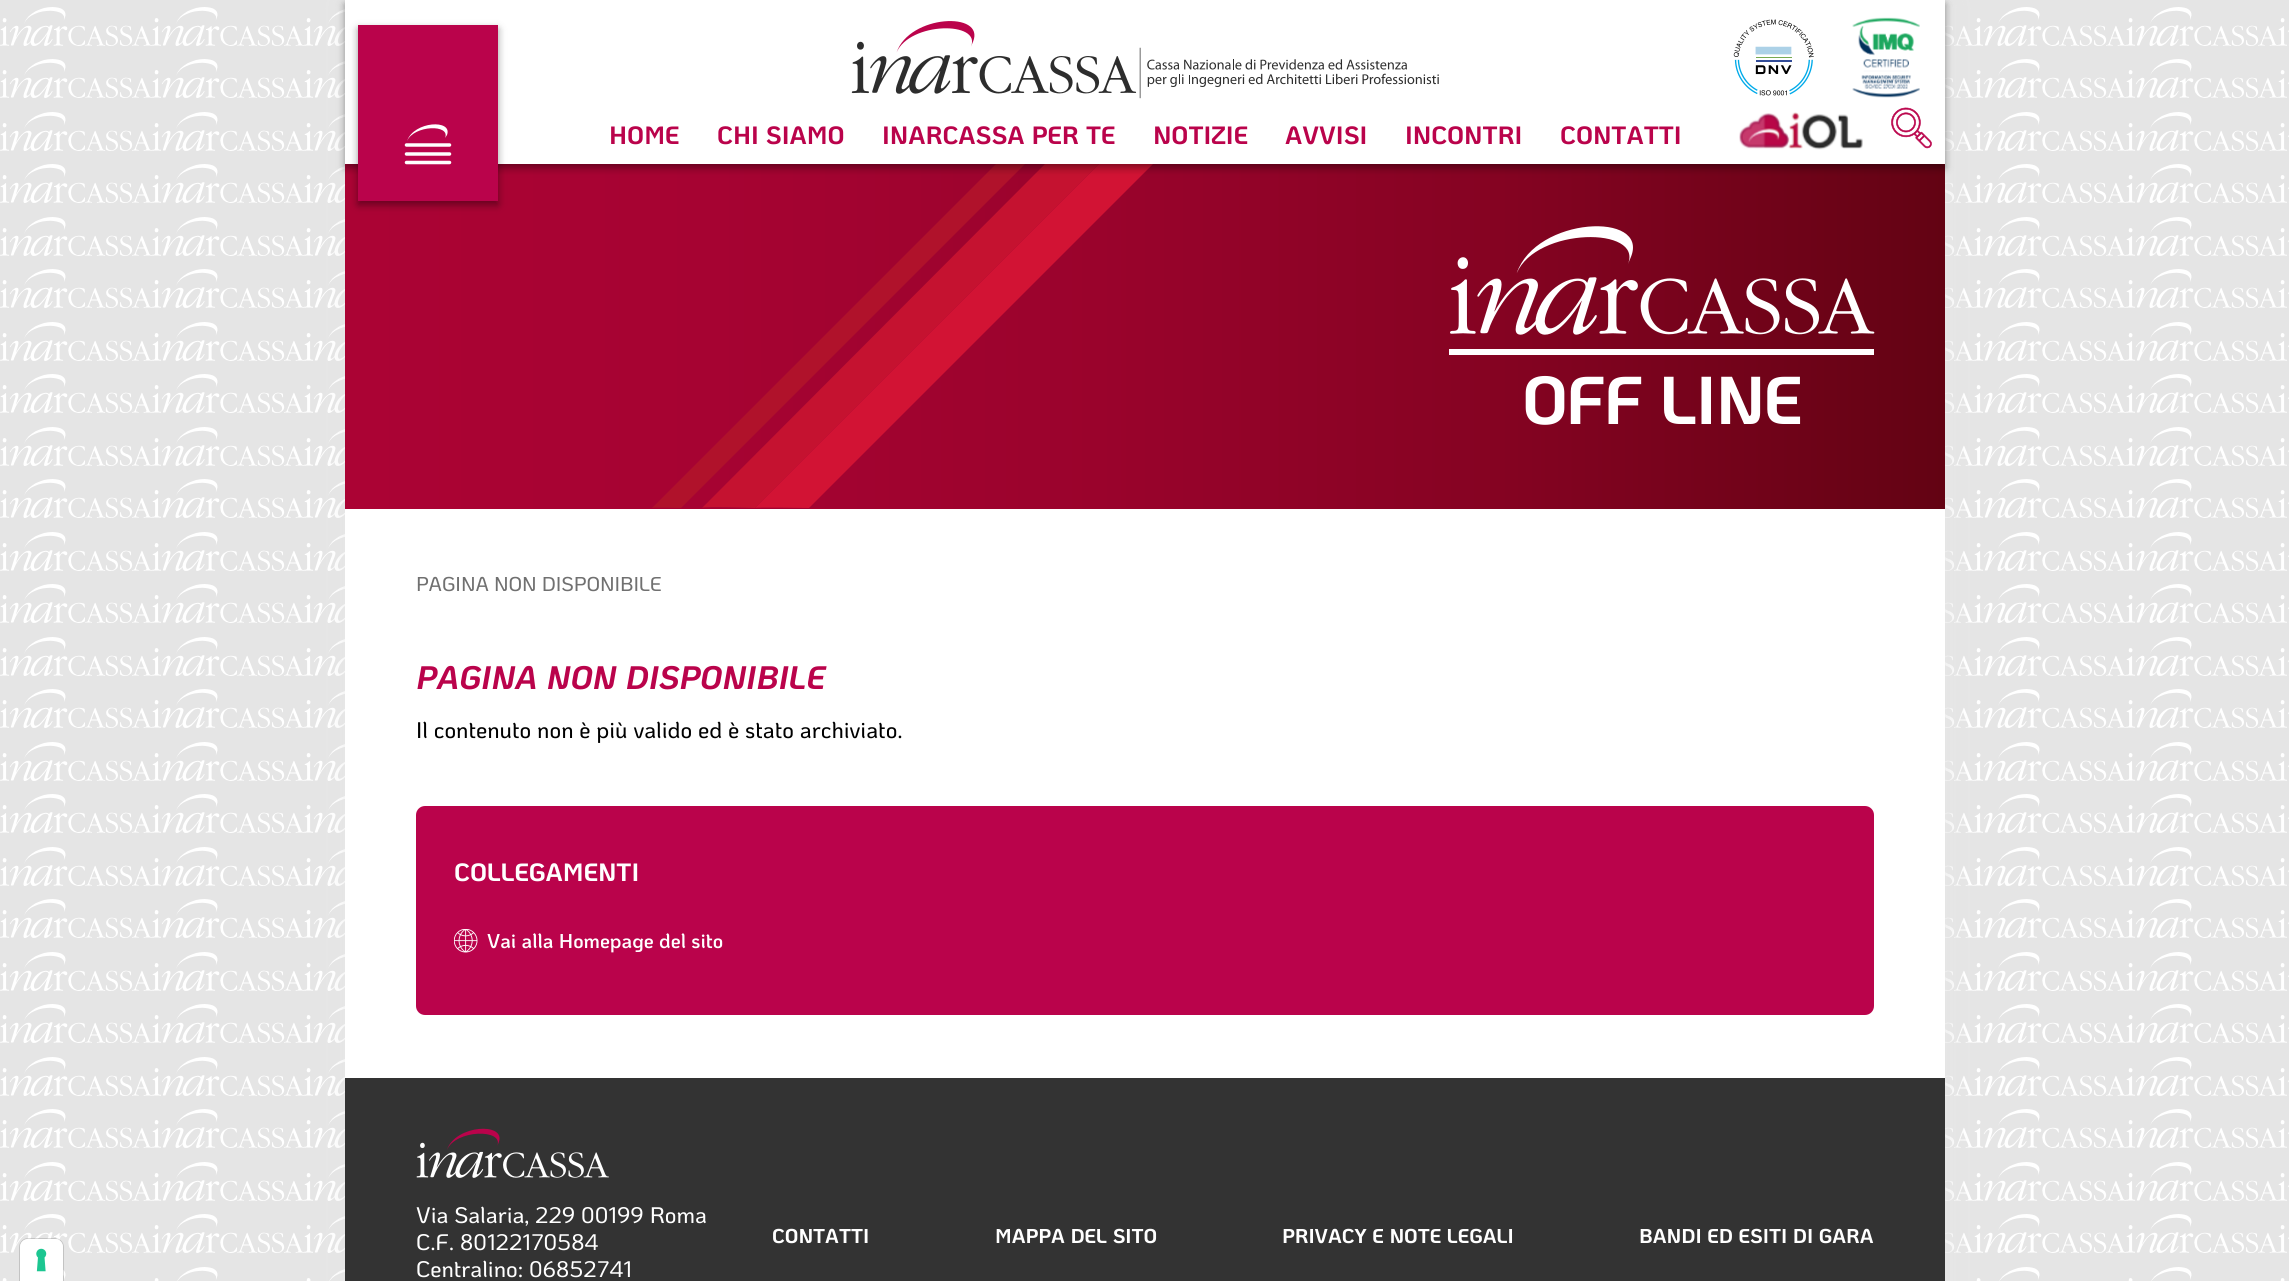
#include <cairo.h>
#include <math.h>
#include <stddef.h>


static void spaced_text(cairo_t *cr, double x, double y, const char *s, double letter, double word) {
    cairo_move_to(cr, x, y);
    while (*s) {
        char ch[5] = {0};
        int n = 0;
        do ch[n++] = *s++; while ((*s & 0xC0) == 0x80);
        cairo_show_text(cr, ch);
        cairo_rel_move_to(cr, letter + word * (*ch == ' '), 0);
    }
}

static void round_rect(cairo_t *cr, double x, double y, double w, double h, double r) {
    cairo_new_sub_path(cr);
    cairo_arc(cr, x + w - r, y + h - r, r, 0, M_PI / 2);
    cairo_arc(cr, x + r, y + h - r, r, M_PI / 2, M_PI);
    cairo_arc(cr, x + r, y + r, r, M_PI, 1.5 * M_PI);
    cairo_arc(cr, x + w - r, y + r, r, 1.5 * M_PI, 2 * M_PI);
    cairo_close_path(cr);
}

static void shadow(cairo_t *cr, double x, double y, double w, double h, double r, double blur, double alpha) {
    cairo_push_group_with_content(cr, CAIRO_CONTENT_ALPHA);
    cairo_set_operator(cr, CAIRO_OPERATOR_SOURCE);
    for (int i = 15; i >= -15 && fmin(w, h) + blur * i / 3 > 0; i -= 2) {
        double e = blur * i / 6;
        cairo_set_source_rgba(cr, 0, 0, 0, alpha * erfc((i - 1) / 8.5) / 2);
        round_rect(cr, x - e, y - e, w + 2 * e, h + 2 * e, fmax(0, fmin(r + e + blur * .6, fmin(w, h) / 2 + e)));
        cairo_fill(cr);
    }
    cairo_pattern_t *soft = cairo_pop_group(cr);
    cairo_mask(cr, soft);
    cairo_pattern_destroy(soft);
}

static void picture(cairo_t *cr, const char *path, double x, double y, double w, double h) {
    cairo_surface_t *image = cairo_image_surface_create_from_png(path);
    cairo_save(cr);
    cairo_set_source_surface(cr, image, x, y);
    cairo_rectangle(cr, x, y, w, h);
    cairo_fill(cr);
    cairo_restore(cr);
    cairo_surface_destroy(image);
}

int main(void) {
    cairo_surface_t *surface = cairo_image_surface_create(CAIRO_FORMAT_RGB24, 2289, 1281);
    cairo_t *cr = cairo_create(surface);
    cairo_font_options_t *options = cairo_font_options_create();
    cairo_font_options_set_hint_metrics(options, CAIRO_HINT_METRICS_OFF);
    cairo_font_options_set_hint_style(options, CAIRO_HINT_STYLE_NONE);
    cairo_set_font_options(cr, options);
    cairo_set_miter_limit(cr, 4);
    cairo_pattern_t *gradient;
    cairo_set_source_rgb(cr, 0.898, 0.898, 0.898);
    cairo_paint(cr);
    picture(cr, "img1.png", 0, 7, 2289, 1274);
    cairo_new_path(cr);
    cairo_move_to(cr, 28, 1238.5);
    cairo_line_to(cr, 55, 1238.5);
    cairo_curve_to(cr, 59.5, 1238.5, 63.5, 1242.5, 63.5, 1247);
    cairo_line_to(cr, 63.5, 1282.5);
    cairo_line_to(cr, 19.5, 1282.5);
    cairo_line_to(cr, 19.5, 1247);
    cairo_curve_to(cr, 19.5, 1242.5, 23.5, 1238.5, 28, 1238.5);
    cairo_close_path(cr);
    cairo_set_source_rgba(cr, 0, 0, 0, 0.15);
    cairo_set_line_width(cr, 1);
    cairo_stroke(cr);
    cairo_set_source_rgb(cr, 1, 1, 1);
    cairo_new_path(cr);
    cairo_move_to(cr, 28, 1239);
    cairo_line_to(cr, 55, 1239);
    cairo_curve_to(cr, 59.5, 1239, 63, 1242.5, 63, 1247);
    cairo_line_to(cr, 63, 1281);
    cairo_line_to(cr, 20, 1281);
    cairo_line_to(cr, 20, 1247);
    cairo_curve_to(cr, 20, 1242.5, 23.5, 1239, 28, 1239);
    cairo_close_path(cr);
    cairo_fill(cr);
    picture(cr, "img2.png", 36, 1248, 11, 24);
    cairo_set_source_rgb(cr, 0.902, 0.902, 0.902);
    shadow(cr, 348, 3, 1600, 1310, 0, 10.5, 1);
    cairo_set_source_rgb(cr, 1, 1, 1);
    cairo_rectangle(cr, 345, 509, 1600, 569);
    cairo_fill(cr);
    gradient = cairo_pattern_create_linear(345, 336, 1945, 336);
    cairo_pattern_add_color_stop_rgba(gradient, 0, 0.671, 0.012, 0.204, 1);
    cairo_pattern_add_color_stop_rgba(gradient, 0.23, 0.651, 0.012, 0.196, 1);
    cairo_pattern_add_color_stop_rgba(gradient, 0.47, 0.604, 0.012, 0.173, 1);
    cairo_pattern_add_color_stop_rgba(gradient, 0.72, 0.522, 0.012, 0.133, 1);
    cairo_pattern_add_color_stop_rgba(gradient, 0.97, 0.404, 0.012, 0.082, 1);
    cairo_pattern_add_color_stop_rgba(gradient, 1, 0.388, 0.012, 0.075, 1);
    cairo_set_source(cr, gradient);
    cairo_pattern_destroy(gradient);
    cairo_rectangle(cr, 345, 164, 1600, 345);
    cairo_fill(cr);
    cairo_set_source_rgb(cr, 0.773, 0.071, 0.188);
    cairo_new_path(cr);
    cairo_move_to(cr, 702, 508);
    cairo_line_to(cr, 1045, 164);
    cairo_line_to(cr, 1099, 164);
    cairo_line_to(cr, 755, 508);
    cairo_curve_to(cr, 755, 508, 703, 506, 702, 508);
    cairo_close_path(cr);
    cairo_fill(cr);
    cairo_set_source_rgb(cr, 0.824, 0.078, 0.204);
    cairo_new_path(cr);
    cairo_move_to(cr, 755, 508);
    cairo_line_to(cr, 1099, 164);
    cairo_line_to(cr, 1153, 164);
    cairo_line_to(cr, 809, 508);
    cairo_curve_to(cr, 809, 508, 756, 507, 755, 508);
    cairo_close_path(cr);
    cairo_fill(cr);
    cairo_set_source_rgb(cr, 0.69, 0.071, 0.169);
    cairo_new_path(cr);
    cairo_move_to(cr, 652, 508);
    cairo_line_to(cr, 996, 164);
    cairo_line_to(cr, 1025, 164);
    cairo_line_to(cr, 681, 508);
    cairo_curve_to(cr, 681, 508, 654, 507, 652, 508);
    cairo_close_path(cr);
    cairo_fill(cr);
    cairo_set_source_rgb(cr, 0, 0, 0);
    shadow(cr, 345, 4, 1600, 164, 0, 4, 0.4);
    cairo_set_source_rgb(cr, 1, 1, 1);
    cairo_rectangle(cr, 345, 0, 1600, 164);
    cairo_fill(cr);
    cairo_set_source_rgb(cr, 0, 0, 0);
    shadow(cr, 358, 29, 140, 176, 0, 4, 0.4);
    cairo_set_source_rgb(cr, 0.729, 0.012, 0.294);
    cairo_rectangle(cr, 358, 25, 140, 176);
    cairo_fill(cr);
    cairo_set_source_rgb(cr, 1, 1, 1);
    cairo_new_path(cr);
    cairo_move_to(cr, 445, 138);
    cairo_curve_to(cr, 451, 124, 414, 125, 407, 141);
    cairo_curve_to(cr, 414, 121, 453, 119, 447, 135);
    cairo_fill(cr);
    cairo_new_path(cr);
    cairo_move_to(cr, 406.5, 145);
    cairo_line_to(cr, 449.5, 145);
    cairo_move_to(cr, 406.5, 154);
    cairo_line_to(cr, 449.5, 154);
    cairo_move_to(cr, 406.5, 162.5);
    cairo_line_to(cr, 449.5, 162.5);
    cairo_set_line_width(cr, 3.5);
    cairo_set_line_cap(cr, CAIRO_LINE_CAP_ROUND);
    cairo_stroke(cr);
    picture(cr, "img3.png", 851, 21, 588, 78);
    picture(cr, "img4.png", 1733, 19, 81, 77);
    picture(cr, "img5.png", 1852, 17, 68, 81);
    picture(cr, "img6.png", 1739, 112, 124, 38);
    picture(cr, "img7.png", 1891, 107, 41, 42);
    cairo_select_font_face(cr, "KoHo", CAIRO_FONT_SLANT_NORMAL, CAIRO_FONT_WEIGHT_BOLD);
    cairo_set_font_size(cr, 25);
    cairo_set_source_rgb(cr, 0.729, 0.012, 0.294);
    cairo_move_to(cr, 609, 144);
    cairo_show_text(cr, "HOME");
    cairo_move_to(cr, 717, 144);
    cairo_show_text(cr, "CHI SIAMO");
    cairo_move_to(cr, 882, 144);
    cairo_show_text(cr, "INARCASSA PER TE");
    cairo_move_to(cr, 1153, 144);
    cairo_show_text(cr, "NOTIZIE");
    cairo_move_to(cr, 1285, 144);
    cairo_show_text(cr, "AVVISI");
    cairo_move_to(cr, 1405, 144);
    cairo_show_text(cr, "INCONTRI");
    cairo_move_to(cr, 1560, 144);
    cairo_show_text(cr, "CONTATTI");
    picture(cr, "img8.png", 1450, 226, 425, 109);
    cairo_set_source_rgb(cr, 1, 1, 1);
    cairo_rectangle(cr, 1449, 349, 425, 6);
    cairo_fill(cr);
    cairo_set_font_size(cr, 67.5);
    spaced_text(cr, 1522, 424, "OFF LINE", -1.25, 0);
    cairo_select_font_face(cr, "KoHo Medium", CAIRO_FONT_SLANT_NORMAL, CAIRO_FONT_WEIGHT_NORMAL);
    cairo_set_font_size(cr, 20);
    cairo_set_source_rgb(cr, 0.439, 0.439, 0.439);
    cairo_move_to(cr, 416, 591);
    cairo_show_text(cr, "PAGINA NON DISPONIBILE");
    cairo_select_font_face(cr, "KoHo", CAIRO_FONT_SLANT_ITALIC, CAIRO_FONT_WEIGHT_BOLD);
    cairo_set_font_size(cr, 32.5);
    cairo_set_source_rgb(cr, 0.729, 0.012, 0.294);
    cairo_move_to(cr, 416, 689);
    cairo_show_text(cr, "PAGINA NON DISPONIBILE");
    cairo_select_font_face(cr, "KoHo Medium", CAIRO_FONT_SLANT_NORMAL, CAIRO_FONT_WEIGHT_NORMAL);
    cairo_set_font_size(cr, 22.5);
    cairo_set_source_rgb(cr, 0, 0, 0);
    cairo_move_to(cr, 416, 738);
    cairo_show_text(cr, "Il contenuto non è più valido ed è stato archiviato.");
    cairo_set_source_rgb(cr, 0.729, 0.012, 0.294);
    round_rect(cr, 416, 806, 1458, 209, 9);
    cairo_fill(cr);
    cairo_select_font_face(cr, "KoHo", CAIRO_FONT_SLANT_NORMAL, CAIRO_FONT_WEIGHT_BOLD);
    cairo_set_font_size(cr, 25);
    cairo_set_source_rgb(cr, 1, 1, 1);
    cairo_move_to(cr, 454, 881);
    cairo_show_text(cr, "COLLEGAMENTI");
    picture(cr, "img9.png", 454, 929, 24, 24);
    cairo_select_font_face(cr, "KoHo SemiBold", CAIRO_FONT_SLANT_NORMAL, CAIRO_FONT_WEIGHT_NORMAL);
    cairo_set_font_size(cr, 20);
    cairo_move_to(cr, 487, 948);
    cairo_show_text(cr, "Vai alla Homepage del sito");
    cairo_set_source_rgb(cr, 0.2, 0.2, 0.2);
    cairo_rectangle(cr, 345, 1078, 1600, 203);
    cairo_fill(cr);
    picture(cr, "img10.png", 416, 1128, 193, 50);
    cairo_select_font_face(cr, "KoHo Medium", CAIRO_FONT_SLANT_NORMAL, CAIRO_FONT_WEIGHT_NORMAL);
    cairo_set_font_size(cr, 22.5);
    cairo_set_source_rgb(cr, 1, 1, 1);
    cairo_move_to(cr, 416, 1223);
    cairo_show_text(cr, "Via Salaria, 229 00199 Roma");
    cairo_move_to(cr, 416, 1250);
    cairo_show_text(cr, "C.F. 80122170584");
    cairo_move_to(cr, 416, 1277);
    cairo_show_text(cr, "Centralino: 06852741");
    cairo_select_font_face(cr, "KoHo", CAIRO_FONT_SLANT_NORMAL, CAIRO_FONT_WEIGHT_BOLD);
    cairo_set_font_size(cr, 20);
    cairo_move_to(cr, 772, 1243);
    cairo_show_text(cr, "CONTATTI");
    cairo_move_to(cr, 995, 1243);
    cairo_show_text(cr, "MAPPA DEL SITO");
    cairo_move_to(cr, 1282, 1243);
    cairo_show_text(cr, "PRIVACY E NOTE LEGALI");
    cairo_move_to(cr, 1639, 1243);
    cairo_show_text(cr, "BANDI ED ESITI DI GARA");
    cairo_surface_write_to_png(surface, "page.png");
    cairo_font_options_destroy(options);
    cairo_destroy(cr);
    cairo_surface_destroy(surface);
    return 0;
}
